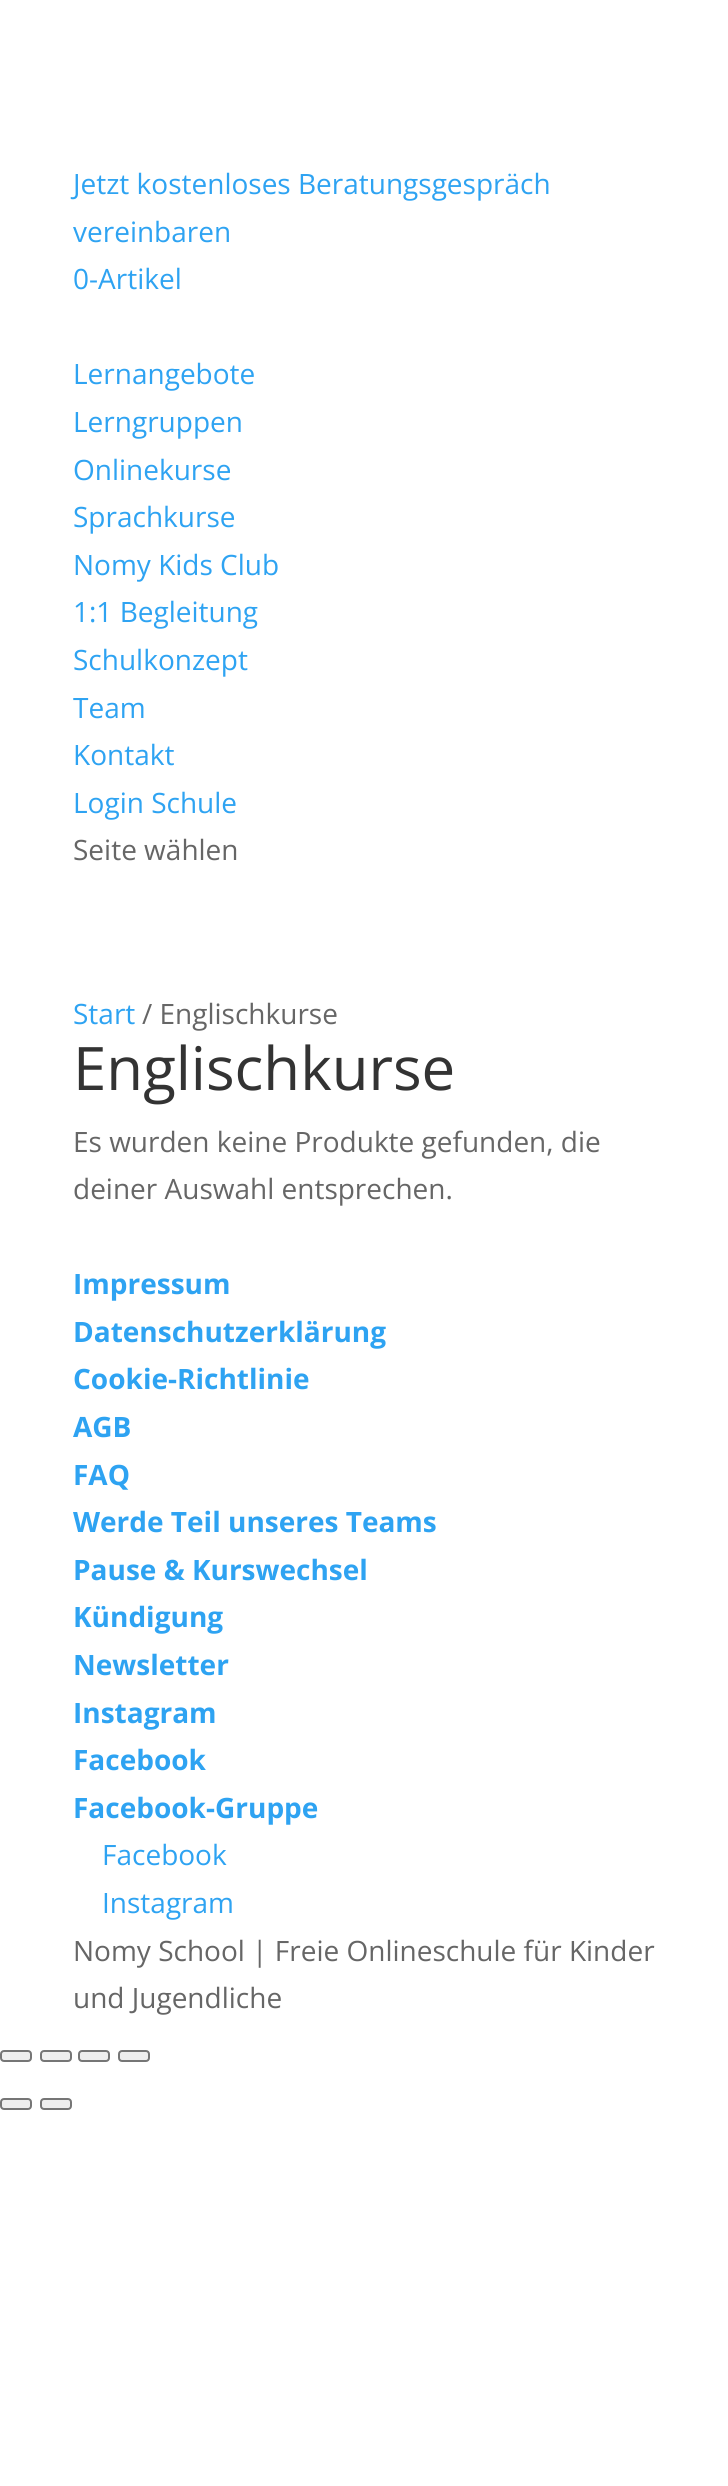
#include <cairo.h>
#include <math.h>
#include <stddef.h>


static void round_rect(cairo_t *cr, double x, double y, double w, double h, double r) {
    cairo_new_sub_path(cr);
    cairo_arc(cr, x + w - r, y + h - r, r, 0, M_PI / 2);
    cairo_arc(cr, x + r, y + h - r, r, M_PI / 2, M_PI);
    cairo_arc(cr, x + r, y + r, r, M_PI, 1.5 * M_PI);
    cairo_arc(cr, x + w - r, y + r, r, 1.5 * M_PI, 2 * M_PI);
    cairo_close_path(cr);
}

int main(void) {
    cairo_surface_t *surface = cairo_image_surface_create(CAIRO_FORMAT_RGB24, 728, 2486);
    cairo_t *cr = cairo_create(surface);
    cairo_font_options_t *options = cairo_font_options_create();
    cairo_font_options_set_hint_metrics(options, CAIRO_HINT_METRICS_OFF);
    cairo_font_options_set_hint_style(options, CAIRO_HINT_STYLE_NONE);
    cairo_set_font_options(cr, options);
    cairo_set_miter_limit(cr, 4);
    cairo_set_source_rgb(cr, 1, 1, 1);
    cairo_paint(cr);
    cairo_select_font_face(cr, "Open Sans", CAIRO_FONT_SLANT_NORMAL, CAIRO_FONT_WEIGHT_NORMAL);
    cairo_set_font_size(cr, 28);
    cairo_set_source_rgb(cr, 0.18, 0.639, 0.949);
    cairo_move_to(cr, 73, 194);
    cairo_show_text(cr, "Jetzt kostenloses Beratungsgespräch");
    cairo_move_to(cr, 73, 242);
    cairo_show_text(cr, "vereinbaren");
    cairo_move_to(cr, 73, 289);
    cairo_show_text(cr, "0-Artikel");
    cairo_move_to(cr, 73, 384);
    cairo_show_text(cr, "Lernangebote");
    cairo_move_to(cr, 73, 432);
    cairo_show_text(cr, "Lerngruppen");
    cairo_move_to(cr, 73, 480);
    cairo_show_text(cr, "Onlinekurse");
    cairo_move_to(cr, 73, 527);
    cairo_show_text(cr, "Sprachkurse");
    cairo_move_to(cr, 73, 575);
    cairo_show_text(cr, "Nomy Kids Club");
    cairo_move_to(cr, 73, 622);
    cairo_show_text(cr, "1:1 Begleitung");
    cairo_move_to(cr, 73, 670);
    cairo_show_text(cr, "Schulkonzept");
    cairo_move_to(cr, 73, 718);
    cairo_show_text(cr, "Team");
    cairo_move_to(cr, 73, 765);
    cairo_show_text(cr, "Kontakt");
    cairo_move_to(cr, 73, 813);
    cairo_show_text(cr, "Login Schule");
    cairo_set_source_rgb(cr, 0.4, 0.4, 0.4);
    cairo_move_to(cr, 73, 860);
    cairo_show_text(cr, "Seite wählen");
    cairo_set_source_rgb(cr, 0.18, 0.639, 0.949);
    cairo_move_to(cr, 73, 1024);
    cairo_show_text(cr, "Start");
    cairo_set_source_rgb(cr, 0.4, 0.4, 0.4);
    cairo_move_to(cr, 142, 1024);
    cairo_show_text(cr, "/ Englischkurse");
    cairo_set_font_size(cr, 60);
    cairo_set_source_rgb(cr, 0.2, 0.2, 0.2);
    cairo_move_to(cr, 73, 1090);
    cairo_show_text(cr, "Englischkurse");
    cairo_set_font_size(cr, 28);
    cairo_set_source_rgb(cr, 0.4, 0.4, 0.4);
    cairo_move_to(cr, 73, 1152);
    cairo_show_text(cr, "Es wurden keine Produkte gefunden, die");
    cairo_move_to(cr, 73, 1199);
    cairo_show_text(cr, "deiner Auswahl entsprechen.");
    cairo_select_font_face(cr, "Open Sans", CAIRO_FONT_SLANT_NORMAL, CAIRO_FONT_WEIGHT_BOLD);
    cairo_set_source_rgb(cr, 0.18, 0.639, 0.949);
    cairo_move_to(cr, 73, 1294);
    cairo_show_text(cr, "Impressum");
    cairo_move_to(cr, 73, 1342);
    cairo_show_text(cr, "Datenschutzerklärung");
    cairo_move_to(cr, 73, 1389);
    cairo_show_text(cr, "Cookie-Richtlinie");
    cairo_move_to(cr, 73, 1437);
    cairo_show_text(cr, "AGB");
    cairo_move_to(cr, 73, 1485);
    cairo_show_text(cr, "FAQ");
    cairo_move_to(cr, 73, 1532);
    cairo_show_text(cr, "Werde Teil unseres Teams");
    cairo_move_to(cr, 73, 1580);
    cairo_show_text(cr, "Pause & Kurswechsel");
    cairo_move_to(cr, 73, 1627);
    cairo_show_text(cr, "Kündigung");
    cairo_move_to(cr, 73, 1675);
    cairo_show_text(cr, "Newsletter");
    cairo_move_to(cr, 73, 1723);
    cairo_show_text(cr, "Instagram");
    cairo_move_to(cr, 73, 1770);
    cairo_show_text(cr, "Facebook");
    cairo_move_to(cr, 73, 1818);
    cairo_show_text(cr, "Facebook-Gruppe");
    cairo_select_font_face(cr, "Open Sans", CAIRO_FONT_SLANT_NORMAL, CAIRO_FONT_WEIGHT_NORMAL);
    cairo_move_to(cr, 102, 1865);
    cairo_show_text(cr, "Facebook");
    cairo_move_to(cr, 102, 1913);
    cairo_show_text(cr, "Instagram");
    cairo_set_source_rgb(cr, 0.4, 0.4, 0.4);
    cairo_move_to(cr, 73, 1961);
    cairo_show_text(cr, "Nomy School | Freie Onlineschule für Kinder");
    cairo_move_to(cr, 73, 2008);
    cairo_show_text(cr, "und Jugendliche");
    cairo_set_source_rgb(cr, 0.937, 0.937, 0.937);
    round_rect(cr, 1, 2051, 30, 10, 3);
    cairo_fill_preserve(cr);
    cairo_set_source_rgb(cr, 0.463, 0.463, 0.463);
    cairo_stroke(cr);
    cairo_set_source_rgb(cr, 0.937, 0.937, 0.937);
    round_rect(cr, 41, 2051, 30, 10, 3);
    cairo_fill_preserve(cr);
    cairo_set_source_rgb(cr, 0.463, 0.463, 0.463);
    cairo_stroke(cr);
    cairo_set_source_rgb(cr, 0.937, 0.937, 0.937);
    round_rect(cr, 79, 2051, 30, 10, 3);
    cairo_fill_preserve(cr);
    cairo_set_source_rgb(cr, 0.463, 0.463, 0.463);
    cairo_stroke(cr);
    cairo_set_source_rgb(cr, 0.937, 0.937, 0.937);
    round_rect(cr, 119, 2051, 30, 10, 3);
    cairo_fill_preserve(cr);
    cairo_set_source_rgb(cr, 0.463, 0.463, 0.463);
    cairo_stroke(cr);
    cairo_set_source_rgb(cr, 0.937, 0.937, 0.937);
    round_rect(cr, 1, 2099, 30, 10, 3);
    cairo_fill_preserve(cr);
    cairo_set_source_rgb(cr, 0.463, 0.463, 0.463);
    cairo_stroke(cr);
    cairo_set_source_rgb(cr, 0.937, 0.937, 0.937);
    round_rect(cr, 41, 2099, 30, 10, 3);
    cairo_fill_preserve(cr);
    cairo_set_source_rgb(cr, 0.463, 0.463, 0.463);
    cairo_stroke(cr);
    cairo_surface_write_to_png(surface, "page.png");
    cairo_font_options_destroy(options);
    cairo_destroy(cr);
    cairo_surface_destroy(surface);
    return 0;
}
